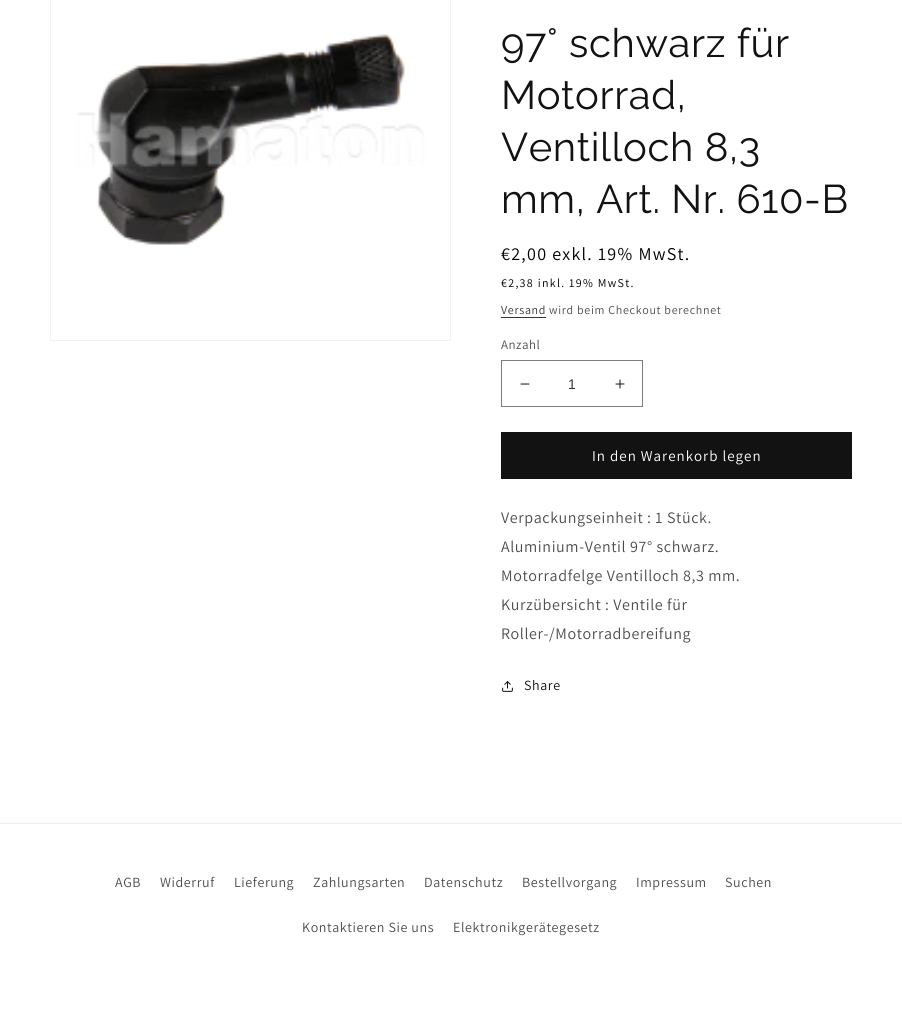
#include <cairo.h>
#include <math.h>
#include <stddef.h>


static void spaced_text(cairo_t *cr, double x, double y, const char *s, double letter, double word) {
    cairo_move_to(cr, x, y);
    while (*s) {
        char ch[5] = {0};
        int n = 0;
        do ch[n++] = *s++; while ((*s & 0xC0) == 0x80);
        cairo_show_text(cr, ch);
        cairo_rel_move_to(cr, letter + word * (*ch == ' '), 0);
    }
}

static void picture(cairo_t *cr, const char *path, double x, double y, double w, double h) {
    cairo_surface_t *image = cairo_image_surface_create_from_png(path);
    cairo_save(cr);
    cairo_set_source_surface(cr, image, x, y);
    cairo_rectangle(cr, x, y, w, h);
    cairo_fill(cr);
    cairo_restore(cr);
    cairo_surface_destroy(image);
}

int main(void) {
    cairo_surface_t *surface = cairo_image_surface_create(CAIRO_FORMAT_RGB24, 902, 1010);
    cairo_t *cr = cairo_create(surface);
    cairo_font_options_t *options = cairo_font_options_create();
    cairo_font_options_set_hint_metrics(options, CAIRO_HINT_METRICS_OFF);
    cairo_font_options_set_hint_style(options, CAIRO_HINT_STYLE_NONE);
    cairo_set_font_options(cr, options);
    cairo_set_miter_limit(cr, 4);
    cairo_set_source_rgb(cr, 1, 1, 1);
    cairo_paint(cr);
    cairo_rectangle(cr, 50.5, -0.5, 400, 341);
    cairo_set_source_rgb(cr, 0.953, 0.953, 0.953);
    cairo_set_line_width(cr, 1);
    cairo_stroke(cr);
    picture(cr, "img1.png", 76, 34, 349, 211);
    cairo_select_font_face(cr, "Raleway", CAIRO_FONT_SLANT_NORMAL, CAIRO_FONT_WEIGHT_NORMAL);
    cairo_set_font_size(cr, 40);
    cairo_set_source_rgb(cr, 0.071, 0.071, 0.071);
    spaced_text(cr, 501, 57, "97° schwarz für", 0.6, 0);
    spaced_text(cr, 501, 109, "Motorrad,", 0.6, 0);
    spaced_text(cr, 501, 161, "Ventilloch 8,3", 0.6, 0);
    spaced_text(cr, 501, 213, "mm, Art. Nr. 610-B", 0.6, 0);
    cairo_select_font_face(cr, "Assistant ExtraLight", CAIRO_FONT_SLANT_NORMAL, CAIRO_FONT_WEIGHT_NORMAL);
    cairo_set_font_size(cr, 18);
    cairo_set_source_rgb(cr, 0, 0, 0);
    spaced_text(cr, 501, 260, "€2,00 exkl. 19% MwSt.", 1.3, 0);
    cairo_set_font_size(cr, 12);
    spaced_text(cr, 501, 287, "€2,38 inkl. 19% MwSt.", 1.3, 0);
    cairo_set_source_rgb(cr, 0.212, 0.212, 0.212);
    spaced_text(cr, 501, 314, "Versand", 0.7, 0);
    cairo_rectangle(cr, 501, 317, 45, 1);
    cairo_fill(cr);
    cairo_set_source_rgb(cr, 0.302, 0.302, 0.302);
    spaced_text(cr, 549, 314, "wird beim Checkout berechnet", 0.7, 0);
    cairo_set_font_size(cr, 13);
    spaced_text(cr, 501, 349, "Anzahl", 0.5, 0);
    picture(cr, "img2.png", 520, 383, 10, 2);
    picture(cr, "img3.png", 615, 379, 10, 10);
    cairo_rectangle(cr, 501.5, 360.5, 141, 46);
    cairo_set_source_rgb(cr, 0.49, 0.49, 0.49);
    cairo_stroke(cr);
    cairo_select_font_face(cr, "Liberation Sans", CAIRO_FONT_SLANT_NORMAL, CAIRO_FONT_WEIGHT_NORMAL);
    cairo_set_font_size(cr, 14);
    cairo_set_source_rgb(cr, 0.212, 0.212, 0.212);
    cairo_move_to(cr, 568, 389);
    cairo_show_text(cr, "1");
    cairo_set_source_rgb(cr, 0.071, 0.071, 0.071);
    cairo_rectangle(cr, 501, 432, 351, 47);
    cairo_fill(cr);
    cairo_select_font_face(cr, "Assistant ExtraLight", CAIRO_FONT_SLANT_NORMAL, CAIRO_FONT_WEIGHT_NORMAL);
    cairo_set_font_size(cr, 15);
    cairo_set_source_rgb(cr, 1, 1, 1);
    spaced_text(cr, 592, 461, "In den Warenkorb legen", 1, 0);
    cairo_set_font_size(cr, 16);
    cairo_set_source_rgb(cr, 0.302, 0.302, 0.302);
    spaced_text(cr, 501, 523, "Verpackungseinheit : 1 Stück.", 0.6, 0);
    spaced_text(cr, 501, 552, "Aluminium-Ventil 97° schwarz.", 0.6, 0);
    spaced_text(cr, 501, 581, "Motorradfelge Ventilloch 8,3 mm.", 0.6, 0);
    spaced_text(cr, 501, 610, "Kurzübersicht : Ventile für", 0.6, 0);
    spaced_text(cr, 501, 639, "Roller-/Motorradbereifung", 0.6, 0);
    picture(cr, "img4.png", 502, 681, 11, 11);
    cairo_set_font_size(cr, 14);
    cairo_set_source_rgb(cr, 0.071, 0.071, 0.071);
    spaced_text(cr, 524, 690, "Share", 0.6, 0);
    cairo_set_source_rgb(cr, 0.925, 0.925, 0.925);
    cairo_rectangle(cr, 0, 823, 902, 1);
    cairo_fill(cr);
    cairo_set_source_rgb(cr, 0.302, 0.302, 0.302);
    spaced_text(cr, 115, 887, "AGB", 0.6, 0);
    spaced_text(cr, 160, 887, "Widerruf", 0.6, 0);
    spaced_text(cr, 234, 887, "Lieferung", 0.6, 0);
    spaced_text(cr, 313, 887, "Zahlungsarten", 0.6, 0);
    spaced_text(cr, 424, 887, "Datenschutz", 0.6, 0);
    spaced_text(cr, 522, 887, "Bestellvorgang", 0.6, 0);
    spaced_text(cr, 636, 887, "Impressum", 0.6, 0);
    spaced_text(cr, 725, 887, "Suchen", 0.6, 0);
    spaced_text(cr, 302, 932, "Kontaktieren Sie uns", 0.6, 0);
    spaced_text(cr, 453, 932, "Elektronikgerätegesetz", 0.6, 0);
    cairo_surface_write_to_png(surface, "page.png");
    cairo_font_options_destroy(options);
    cairo_destroy(cr);
    cairo_surface_destroy(surface);
    return 0;
}
